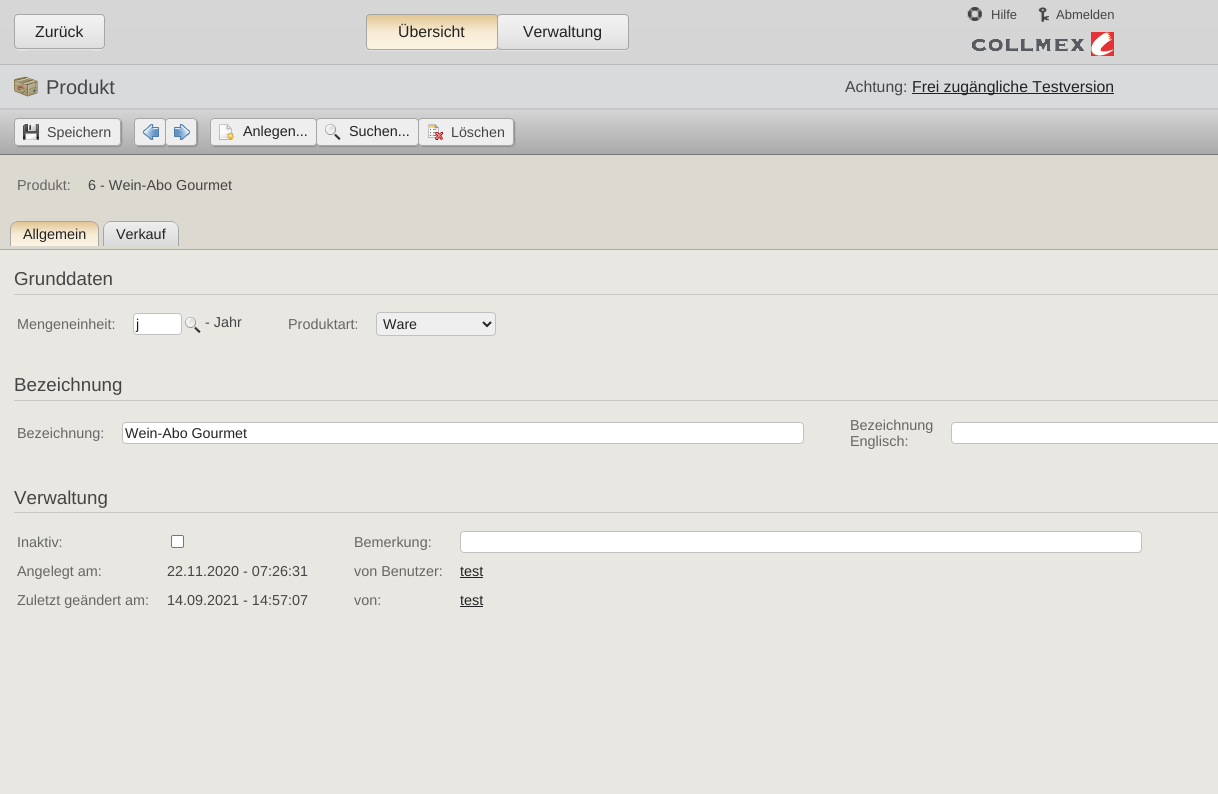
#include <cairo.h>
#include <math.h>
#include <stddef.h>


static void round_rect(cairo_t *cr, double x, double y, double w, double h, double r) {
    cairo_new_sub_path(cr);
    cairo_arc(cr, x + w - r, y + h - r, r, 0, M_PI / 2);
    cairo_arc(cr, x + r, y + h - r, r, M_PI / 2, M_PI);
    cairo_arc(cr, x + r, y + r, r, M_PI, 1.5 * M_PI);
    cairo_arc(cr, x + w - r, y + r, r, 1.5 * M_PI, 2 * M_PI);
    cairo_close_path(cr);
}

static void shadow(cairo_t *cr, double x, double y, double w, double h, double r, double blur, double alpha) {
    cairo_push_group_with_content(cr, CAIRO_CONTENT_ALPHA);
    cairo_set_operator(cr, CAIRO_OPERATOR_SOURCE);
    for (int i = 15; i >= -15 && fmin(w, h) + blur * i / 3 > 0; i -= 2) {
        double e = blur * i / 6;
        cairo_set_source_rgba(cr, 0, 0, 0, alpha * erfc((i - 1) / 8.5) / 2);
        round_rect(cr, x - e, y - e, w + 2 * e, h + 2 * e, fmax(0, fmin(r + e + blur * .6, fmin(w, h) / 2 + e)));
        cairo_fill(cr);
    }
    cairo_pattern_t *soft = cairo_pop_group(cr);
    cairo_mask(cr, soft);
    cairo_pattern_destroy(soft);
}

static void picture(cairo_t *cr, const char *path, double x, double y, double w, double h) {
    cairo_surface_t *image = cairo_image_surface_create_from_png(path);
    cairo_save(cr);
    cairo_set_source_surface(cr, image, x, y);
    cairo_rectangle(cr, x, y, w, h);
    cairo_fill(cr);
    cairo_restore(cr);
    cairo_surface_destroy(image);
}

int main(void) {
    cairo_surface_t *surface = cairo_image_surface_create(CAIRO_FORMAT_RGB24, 1218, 794);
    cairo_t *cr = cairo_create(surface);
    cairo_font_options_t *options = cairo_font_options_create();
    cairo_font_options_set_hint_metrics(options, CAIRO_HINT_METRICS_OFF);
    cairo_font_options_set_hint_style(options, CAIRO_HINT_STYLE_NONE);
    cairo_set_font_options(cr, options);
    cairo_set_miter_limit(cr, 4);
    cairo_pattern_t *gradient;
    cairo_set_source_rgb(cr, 0.914, 0.906, 0.882);
    cairo_paint(cr);
    gradient = cairo_pattern_create_linear(846, 0, 846, 64);
    cairo_pattern_add_color_stop_rgba(gradient, 0, 0.839, 0.839, 0.839, 1);
    cairo_pattern_add_color_stop_rgba(gradient, 1, 0.835, 0.835, 0.835, 1);
    cairo_set_source(cr, gradient);
    cairo_pattern_destroy(gradient);
    cairo_rectangle(cr, 0, 0, 1218, 64);
    cairo_fill(cr);
    cairo_set_source_rgb(cr, 0.725, 0.725, 0.725);
    cairo_rectangle(cr, 0, 64, 1218, 1);
    cairo_fill(cr);
    picture(cr, "img1.png", 967, 7, 15, 15);
    cairo_select_font_face(cr, "Liberation Sans", CAIRO_FONT_SLANT_NORMAL, CAIRO_FONT_WEIGHT_NORMAL);
    cairo_set_font_size(cr, 13);
    cairo_set_source_rgb(cr, 0.271, 0.271, 0.271);
    cairo_move_to(cr, 991, 19);
    cairo_show_text(cr, "Hilfe");
    picture(cr, "img2.png", 1038, 7, 11, 15);
    cairo_move_to(cr, 1056, 19);
    cairo_show_text(cr, "Abmelden");
    picture(cr, "img3.png", 972, 32, 142, 24);
    cairo_set_source_rgb(cr, 0.89, 0.89, 0.89);
    cairo_new_path(cr);
    cairo_move_to(cr, 14, 45);
    cairo_curve_to(cr, 14, 54, 27, 50, 32, 50);
    cairo_line_to(cr, 87, 50);
    cairo_curve_to(cr, 92, 50, 105, 54, 105, 45);
    cairo_curve_to(cr, 105, 47, 103, 49, 101, 49);
    cairo_line_to(cr, 18, 49);
    cairo_curve_to(cr, 16, 49, 14, 47, 14, 45);
    cairo_close_path(cr);
    cairo_fill(cr);
    cairo_save(cr);
    round_rect(cr, 14, 14, 91, 35, 4);
    cairo_clip(cr);
    gradient = cairo_pattern_create_linear(60, 15, 60, 48);
    cairo_pattern_add_color_stop_rgba(gradient, 0, 0.949, 0.949, 0.949, 1);
    cairo_pattern_add_color_stop_rgba(gradient, 0.5, 0.918, 0.918, 0.918, 1);
    cairo_pattern_add_color_stop_rgba(gradient, 1, 0.871, 0.871, 0.871, 1);
    cairo_set_source(cr, gradient);
    cairo_pattern_destroy(gradient);
    cairo_rectangle(cr, 14, 15, 91, 33);
    cairo_fill(cr);
    cairo_restore(cr);
    round_rect(cr, 14.5, 14.5, 90, 34, 3.5);
    cairo_set_source_rgb(cr, 0.651, 0.651, 0.651);
    cairo_set_line_width(cr, 1);
    cairo_stroke(cr);
    cairo_set_font_size(cr, 15.8);
    cairo_set_source_rgb(cr, 0.133, 0.133, 0.133);
    cairo_move_to(cr, 35, 37);
    cairo_show_text(cr, "Zurück");
    cairo_set_source_rgb(cr, 0.89, 0.89, 0.89);
    cairo_new_path(cr);
    cairo_move_to(cr, 366, 46);
    cairo_line_to(cr, 366, 47);
    cairo_curve_to(cr, 366, 49, 368, 51, 370, 51);
    cairo_line_to(cr, 494, 51);
    cairo_curve_to(cr, 496, 51, 498, 49, 498, 47);
    cairo_line_to(cr, 498, 46);
    cairo_curve_to(cr, 498, 48, 496, 50, 494, 50);
    cairo_line_to(cr, 370, 50);
    cairo_curve_to(cr, 368, 50, 366, 48, 366, 46);
    cairo_close_path(cr);
    cairo_fill(cr);
    cairo_save(cr);
    round_rect(cr, 366, 14, 132, 36, 4);
    cairo_clip(cr);
    gradient = cairo_pattern_create_linear(432, 15, 432, 49);
    cairo_pattern_add_color_stop_rgba(gradient, 0, 0.886, 0.776, 0.576, 1);
    cairo_pattern_add_color_stop_rgba(gradient, 0.5, 0.969, 0.922, 0.831, 1);
    cairo_pattern_add_color_stop_rgba(gradient, 1, 0.988, 0.953, 0.89, 1);
    cairo_set_source(cr, gradient);
    cairo_pattern_destroy(gradient);
    cairo_rectangle(cr, 366, 15, 132, 34);
    cairo_fill(cr);
    cairo_restore(cr);
    round_rect(cr, 366.5, 14.5, 131, 35, 3.5);
    cairo_set_source_rgb(cr, 0.651, 0.651, 0.651);
    cairo_stroke(cr);
    cairo_set_source_rgb(cr, 0.133, 0.133, 0.133);
    cairo_move_to(cr, 398, 37);
    cairo_show_text(cr, "Übersicht");
    cairo_set_source_rgb(cr, 0.89, 0.89, 0.89);
    cairo_new_path(cr);
    cairo_move_to(cr, 497, 46);
    cairo_line_to(cr, 497, 47);
    cairo_curve_to(cr, 497, 49, 499, 51, 501, 51);
    cairo_line_to(cr, 625, 51);
    cairo_curve_to(cr, 627, 51, 629, 49, 629, 47);
    cairo_line_to(cr, 629, 46);
    cairo_curve_to(cr, 629, 48, 627, 50, 625, 50);
    cairo_line_to(cr, 501, 50);
    cairo_curve_to(cr, 499, 50, 497, 48, 497, 46);
    cairo_close_path(cr);
    cairo_fill(cr);
    cairo_save(cr);
    round_rect(cr, 497, 14, 132, 36, 4);
    cairo_clip(cr);
    gradient = cairo_pattern_create_linear(563, 15, 563, 49);
    cairo_pattern_add_color_stop_rgba(gradient, 0, 0.949, 0.949, 0.949, 1);
    cairo_pattern_add_color_stop_rgba(gradient, 0.5, 0.918, 0.918, 0.918, 1);
    cairo_pattern_add_color_stop_rgba(gradient, 1, 0.871, 0.871, 0.871, 1);
    cairo_set_source(cr, gradient);
    cairo_pattern_destroy(gradient);
    cairo_rectangle(cr, 497, 15, 132, 34);
    cairo_fill(cr);
    cairo_restore(cr);
    round_rect(cr, 497.5, 14.5, 131, 35, 3.5);
    cairo_set_source_rgb(cr, 0.651, 0.651, 0.651);
    cairo_stroke(cr);
    cairo_set_source_rgb(cr, 0.133, 0.133, 0.133);
    cairo_move_to(cr, 523, 37);
    cairo_show_text(cr, "Verwaltung");
    cairo_set_source_rgb(cr, 0.851, 0.855, 0.863);
    cairo_rectangle(cr, 0, 65, 1218, 43);
    cairo_fill(cr);
    cairo_set_source_rgb(cr, 0.765, 0.765, 0.784);
    cairo_rectangle(cr, 0, 108, 1218, 1);
    cairo_fill(cr);
    picture(cr, "img4.png", 14, 76, 24, 21);
    cairo_set_font_size(cr, 20);
    cairo_set_source_rgb(cr, 0.271, 0.271, 0.271);
    cairo_move_to(cr, 46, 94);
    cairo_show_text(cr, "Produkt");
    cairo_set_font_size(cr, 15.8);
    cairo_move_to(cr, 845, 92);
    cairo_show_text(cr, "Achtung:");
    cairo_set_source_rgb(cr, 0.133, 0.133, 0.133);
    cairo_rectangle(cr, 912, 93, 202, 1);
    cairo_fill(cr);
    cairo_move_to(cr, 912, 92);
    cairo_show_text(cr, "Frei zugängliche Testversion");
    cairo_set_source_rgb(cr, 0.788, 0.788, 0.788);
    cairo_rectangle(cr, 0, 109, 1218, 1);
    cairo_fill(cr);
    gradient = cairo_pattern_create_linear(846, 110, 846, 154);
    cairo_pattern_add_color_stop_rgba(gradient, 0, 0.835, 0.835, 0.835, 1);
    cairo_pattern_add_color_stop_rgba(gradient, 1, 0.663, 0.663, 0.663, 1);
    cairo_set_source(cr, gradient);
    cairo_pattern_destroy(gradient);
    cairo_rectangle(cr, 0, 110, 1218, 44);
    cairo_fill(cr);
    cairo_set_source_rgb(cr, 0.455, 0.455, 0.455);
    cairo_rectangle(cr, 0, 154, 1218, 1);
    cairo_fill(cr);
    cairo_set_source_rgb(cr, 0.569, 0.569, 0.569);
    shadow(cr, 15, 119, 107, 28, 4, 0.5, 1);
    cairo_set_source_rgb(cr, 0.937, 0.933, 0.937);
    round_rect(cr, 14, 118, 107, 28, 4);
    cairo_fill(cr);
    picture(cr, "img5.png", 23, 124, 16, 16);
    round_rect(cr, 14.5, 118.5, 106, 27, 3.5);
    cairo_set_source_rgb(cr, 0.651, 0.651, 0.651);
    cairo_stroke(cr);
    cairo_set_font_size(cr, 14.25);
    cairo_set_source_rgb(cr, 0.271, 0.271, 0.271);
    cairo_move_to(cr, 47, 137);
    cairo_show_text(cr, "Speichern");
    cairo_set_source_rgb(cr, 0.569, 0.569, 0.569);
    shadow(cr, 135, 119, 32, 28, 4, 0.5, 1);
    cairo_set_source_rgb(cr, 0.937, 0.933, 0.937);
    round_rect(cr, 134, 118, 32, 28, 4);
    cairo_fill(cr);
    picture(cr, "img6.png", 143, 124, 16, 16);
    round_rect(cr, 134.5, 118.5, 31, 27, 3.5);
    cairo_set_source_rgb(cr, 0.651, 0.651, 0.651);
    cairo_stroke(cr);
    cairo_set_source_rgb(cr, 0.569, 0.569, 0.569);
    shadow(cr, 166, 119, 32, 28, 4, 0.5, 1);
    cairo_set_source_rgb(cr, 0.937, 0.933, 0.937);
    round_rect(cr, 165, 118, 32, 28, 4);
    cairo_fill(cr);
    picture(cr, "img7.png", 174, 124, 16, 16);
    round_rect(cr, 165.5, 118.5, 31, 27, 3.5);
    cairo_set_source_rgb(cr, 0.651, 0.651, 0.651);
    cairo_stroke(cr);
    cairo_set_source_rgb(cr, 0.569, 0.569, 0.569);
    shadow(cr, 211, 119, 107, 28, 4, 0.5, 1);
    cairo_set_source_rgb(cr, 0.937, 0.933, 0.937);
    round_rect(cr, 210, 118, 107, 28, 4);
    cairo_fill(cr);
    picture(cr, "img8.png", 219, 124, 16, 16);
    round_rect(cr, 210.5, 118.5, 106, 27, 3.5);
    cairo_set_source_rgb(cr, 0.651, 0.651, 0.651);
    cairo_stroke(cr);
    cairo_set_font_size(cr, 14.4);
    cairo_set_source_rgb(cr, 0.133, 0.133, 0.133);
    cairo_move_to(cr, 243, 136);
    cairo_show_text(cr, "Anlegen...");
    cairo_set_source_rgb(cr, 0.569, 0.569, 0.569);
    shadow(cr, 317, 119, 103, 28, 4, 0.5, 1);
    cairo_set_source_rgb(cr, 0.937, 0.933, 0.937);
    round_rect(cr, 316, 118, 103, 28, 4);
    cairo_fill(cr);
    picture(cr, "img9.png", 325, 124, 16, 16);
    round_rect(cr, 316.5, 118.5, 102, 27, 3.5);
    cairo_set_source_rgb(cr, 0.651, 0.651, 0.651);
    cairo_stroke(cr);
    cairo_set_source_rgb(cr, 0.133, 0.133, 0.133);
    cairo_move_to(cr, 349, 136);
    cairo_show_text(cr, "Suchen...");
    cairo_set_source_rgb(cr, 0.569, 0.569, 0.569);
    shadow(cr, 419, 119, 96, 28, 4, 0.5, 1);
    cairo_set_source_rgb(cr, 0.937, 0.933, 0.937);
    round_rect(cr, 418, 118, 96, 28, 4);
    cairo_fill(cr);
    picture(cr, "img10.png", 428, 124, 15, 16);
    round_rect(cr, 418.5, 118.5, 95, 27, 3.5);
    cairo_set_source_rgb(cr, 0.651, 0.651, 0.651);
    cairo_stroke(cr);
    cairo_set_font_size(cr, 14.25);
    cairo_set_source_rgb(cr, 0.271, 0.271, 0.271);
    cairo_move_to(cr, 451, 137);
    cairo_show_text(cr, "Löschen");
    cairo_set_source_rgb(cr, 0.863, 0.851, 0.816);
    cairo_rectangle(cr, 0, 155, 1218, 94);
    cairo_fill(cr);
    cairo_set_font_size(cr, 14.4);
    cairo_set_source_rgb(cr, 0.4, 0.4, 0.4);
    cairo_move_to(cr, 17, 190);
    cairo_show_text(cr, "Produkt:");
    cairo_set_source_rgb(cr, 0.271, 0.271, 0.271);
    cairo_move_to(cr, 88, 190);
    cairo_show_text(cr, "6 - Wein-Abo Gourmet");
    cairo_set_source_rgb(cr, 0.667, 0.667, 0.667);
    cairo_rectangle(cr, 0, 249, 1218, 1);
    cairo_fill(cr);
    cairo_save(cr);
    cairo_new_path(cr);
    cairo_move_to(cr, 18, 221);
    cairo_line_to(cr, 91, 221);
    cairo_curve_to(cr, 95.5, 221, 99, 224.5, 99, 229);
    cairo_line_to(cr, 99, 246);
    cairo_line_to(cr, 10, 246);
    cairo_line_to(cr, 10, 229);
    cairo_curve_to(cr, 10, 224.5, 13.5, 221, 18, 221);
    cairo_close_path(cr);
    cairo_clip(cr);
    gradient = cairo_pattern_create_linear(55, 222, 55, 246);
    cairo_pattern_add_color_stop_rgba(gradient, 0, 0.886, 0.776, 0.576, 1);
    cairo_pattern_add_color_stop_rgba(gradient, 0.5, 0.969, 0.922, 0.831, 1);
    cairo_pattern_add_color_stop_rgba(gradient, 1, 0.988, 0.953, 0.89, 1);
    cairo_set_source(cr, gradient);
    cairo_pattern_destroy(gradient);
    cairo_rectangle(cr, 10, 222, 89, 24);
    cairo_fill(cr);
    gradient = cairo_pattern_create_linear(55, 198, 55, 222);
    cairo_pattern_add_color_stop_rgba(gradient, 0, 0.886, 0.776, 0.576, 1);
    cairo_pattern_add_color_stop_rgba(gradient, 0.5, 0.969, 0.922, 0.831, 1);
    cairo_pattern_add_color_stop_rgba(gradient, 1, 0.988, 0.953, 0.89, 1);
    cairo_set_source(cr, gradient);
    cairo_pattern_destroy(gradient);
    cairo_rectangle(cr, 10, 221, 89, 1);
    cairo_fill(cr);
    cairo_restore(cr);
    cairo_set_source_rgb(cr, 0.651, 0.651, 0.651);
    cairo_set_fill_rule(cr, CAIRO_FILL_RULE_EVEN_ODD);
    cairo_new_path(cr);
    cairo_move_to(cr, 18, 221);
    cairo_line_to(cr, 91, 221);
    cairo_curve_to(cr, 95, 221, 99, 225, 99, 229);
    cairo_line_to(cr, 99, 246);
    cairo_line_to(cr, 10, 246);
    cairo_line_to(cr, 10, 229);
    cairo_curve_to(cr, 10, 225, 14, 221, 18, 221);
    cairo_close_path(cr);
    cairo_move_to(cr, 18, 222);
    cairo_line_to(cr, 91, 222);
    cairo_curve_to(cr, 95, 222, 98, 225, 98, 229);
    cairo_line_to(cr, 98, 246);
    cairo_line_to(cr, 11, 246);
    cairo_line_to(cr, 11, 229);
    cairo_curve_to(cr, 11, 225, 14, 222, 18, 222);
    cairo_close_path(cr);
    cairo_fill(cr);
    cairo_set_source_rgb(cr, 0.133, 0.133, 0.133);
    cairo_move_to(cr, 23, 239);
    cairo_show_text(cr, "Allgemein");
    cairo_save(cr);
    cairo_set_fill_rule(cr, CAIRO_FILL_RULE_WINDING);
    cairo_new_path(cr);
    cairo_move_to(cr, 111, 221);
    cairo_line_to(cr, 171, 221);
    cairo_curve_to(cr, 175.5, 221, 179, 224.5, 179, 229);
    cairo_line_to(cr, 179, 246);
    cairo_line_to(cr, 103, 246);
    cairo_line_to(cr, 103, 229);
    cairo_curve_to(cr, 103, 224.5, 106.5, 221, 111, 221);
    cairo_close_path(cr);
    cairo_clip(cr);
    gradient = cairo_pattern_create_linear(141, 222, 141, 246);
    cairo_pattern_add_color_stop_rgba(gradient, 0, 0.937, 0.933, 0.937, 1);
    cairo_pattern_add_color_stop_rgba(gradient, 1, 0.855, 0.855, 0.855, 1);
    cairo_set_source(cr, gradient);
    cairo_pattern_destroy(gradient);
    cairo_rectangle(cr, 103, 222, 76, 24);
    cairo_fill(cr);
    gradient = cairo_pattern_create_linear(141, 198, 141, 222);
    cairo_pattern_add_color_stop_rgba(gradient, 0, 0.937, 0.933, 0.937, 1);
    cairo_pattern_add_color_stop_rgba(gradient, 1, 0.855, 0.855, 0.855, 1);
    cairo_set_source(cr, gradient);
    cairo_pattern_destroy(gradient);
    cairo_rectangle(cr, 103, 221, 76, 1);
    cairo_fill(cr);
    cairo_restore(cr);
    cairo_set_source_rgb(cr, 0.651, 0.651, 0.651);
    cairo_new_path(cr);
    cairo_move_to(cr, 111, 221);
    cairo_line_to(cr, 171, 221);
    cairo_curve_to(cr, 175, 221, 179, 225, 179, 229);
    cairo_line_to(cr, 179, 246);
    cairo_line_to(cr, 103, 246);
    cairo_line_to(cr, 103, 229);
    cairo_curve_to(cr, 103, 225, 107, 221, 111, 221);
    cairo_close_path(cr);
    cairo_move_to(cr, 111, 222);
    cairo_line_to(cr, 171, 222);
    cairo_curve_to(cr, 175, 222, 178, 225, 178, 229);
    cairo_line_to(cr, 178, 246);
    cairo_line_to(cr, 104, 246);
    cairo_line_to(cr, 104, 229);
    cairo_curve_to(cr, 104, 225, 107, 222, 111, 222);
    cairo_close_path(cr);
    cairo_fill(cr);
    cairo_set_source_rgb(cr, 0.133, 0.133, 0.133);
    cairo_move_to(cr, 116, 239);
    cairo_show_text(cr, "Verkauf");
    cairo_set_source_rgb(cr, 0.78, 0.78, 0.776);
    cairo_rectangle(cr, 14, 294, 1204, 1);
    cairo_fill(cr);
    cairo_set_font_size(cr, 18.75);
    cairo_set_source_rgb(cr, 0.271, 0.271, 0.271);
    cairo_move_to(cr, 14, 285);
    cairo_show_text(cr, "Grunddaten");
    cairo_set_font_size(cr, 14.4);
    cairo_set_source_rgb(cr, 0.4, 0.4, 0.4);
    cairo_move_to(cr, 17, 329);
    cairo_show_text(cr, "Mengeneinheit:");
    cairo_set_source_rgb(cr, 1, 1, 1);
    round_rect(cr, 133.5, 313.5, 48, 21, 3.5);
    cairo_fill_preserve(cr);
    cairo_set_source_rgb(cr, 0.757, 0.757, 0.757);
    cairo_stroke(cr);
    cairo_set_font_size(cr, 14.25);
    cairo_set_source_rgb(cr, 0.133, 0.133, 0.133);
    cairo_move_to(cr, 136, 329);
    cairo_show_text(cr, "j");
    picture(cr, "img11.png", 185, 317, 16, 16);
    cairo_set_font_size(cr, 14.4);
    cairo_set_source_rgb(cr, 0.271, 0.271, 0.271);
    cairo_move_to(cr, 205, 327);
    cairo_show_text(cr, "- Jahr");
    cairo_set_source_rgb(cr, 0.4, 0.4, 0.4);
    cairo_move_to(cr, 288, 329);
    cairo_show_text(cr, "Produktart:");
    cairo_set_source_rgb(cr, 0.937, 0.937, 0.937);
    round_rect(cr, 376.5, 312.5, 119, 23, 3.5);
    cairo_fill_preserve(cr);
    cairo_set_source_rgb(cr, 0.757, 0.757, 0.757);
    cairo_stroke(cr);
    cairo_new_path(cr);
    cairo_move_to(cr, 483, 322);
    cairo_line_to(cr, 487, 326);
    cairo_line_to(cr, 491, 322);
    cairo_set_source_rgb(cr, 0.133, 0.133, 0.133);
    cairo_set_line_width(cr, 2);
    cairo_stroke(cr);
    cairo_set_font_size(cr, 14.25);
    cairo_move_to(cr, 383, 329);
    cairo_show_text(cr, "Ware");
    cairo_set_source_rgb(cr, 0.78, 0.78, 0.776);
    cairo_rectangle(cr, 14, 400, 1204, 1);
    cairo_fill(cr);
    cairo_set_font_size(cr, 18.75);
    cairo_set_source_rgb(cr, 0.271, 0.271, 0.271);
    cairo_move_to(cr, 14, 391);
    cairo_show_text(cr, "Bezeichnung");
    cairo_set_font_size(cr, 14.4);
    cairo_set_source_rgb(cr, 0.4, 0.4, 0.4);
    cairo_move_to(cr, 17, 438);
    cairo_show_text(cr, "Bezeichnung:");
    cairo_set_source_rgb(cr, 1, 1, 1);
    round_rect(cr, 122.5, 422.5, 681, 21, 3.5);
    cairo_fill_preserve(cr);
    cairo_set_source_rgb(cr, 0.757, 0.757, 0.757);
    cairo_set_line_width(cr, 1);
    cairo_stroke(cr);
    cairo_set_font_size(cr, 14.25);
    cairo_set_source_rgb(cr, 0.133, 0.133, 0.133);
    cairo_move_to(cr, 125, 438);
    cairo_show_text(cr, "Wein-Abo Gourmet");
    cairo_set_font_size(cr, 14.4);
    cairo_set_source_rgb(cr, 0.4, 0.4, 0.4);
    cairo_move_to(cr, 850, 430);
    cairo_show_text(cr, "Bezeichnung");
    cairo_move_to(cr, 850, 446);
    cairo_show_text(cr, "Englisch:");
    cairo_set_source_rgb(cr, 1, 1, 1);
    round_rect(cr, 951.5, 422.5, 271, 21, 3.5);
    cairo_fill_preserve(cr);
    cairo_set_source_rgb(cr, 0.757, 0.757, 0.757);
    cairo_stroke(cr);
    cairo_set_source_rgb(cr, 0.78, 0.78, 0.776);
    cairo_rectangle(cr, 14, 512, 1204, 1);
    cairo_fill(cr);
    cairo_set_font_size(cr, 18.75);
    cairo_set_source_rgb(cr, 0.271, 0.271, 0.271);
    cairo_move_to(cr, 14, 504);
    cairo_show_text(cr, "Verwaltung");
    cairo_set_font_size(cr, 14.4);
    cairo_set_source_rgb(cr, 0.4, 0.4, 0.4);
    cairo_move_to(cr, 17, 547);
    cairo_show_text(cr, "Inaktiv:");
    cairo_set_source_rgb(cr, 1, 1, 1);
    round_rect(cr, 171.5, 535.5, 12, 12, 1.5);
    cairo_fill_preserve(cr);
    cairo_set_source_rgb(cr, 0.463, 0.463, 0.463);
    cairo_stroke(cr);
    cairo_set_source_rgb(cr, 0.4, 0.4, 0.4);
    cairo_move_to(cr, 354, 547);
    cairo_show_text(cr, "Bemerkung:");
    cairo_set_source_rgb(cr, 1, 1, 1);
    round_rect(cr, 460.5, 531.5, 681, 21, 3.5);
    cairo_fill_preserve(cr);
    cairo_set_source_rgb(cr, 0.757, 0.757, 0.757);
    cairo_stroke(cr);
    cairo_set_source_rgb(cr, 0.4, 0.4, 0.4);
    cairo_move_to(cr, 17, 576);
    cairo_show_text(cr, "Angelegt am:");
    cairo_set_source_rgb(cr, 0.271, 0.271, 0.271);
    cairo_move_to(cr, 167, 576);
    cairo_show_text(cr, "22.11.2020 - 07:26:31");
    cairo_set_source_rgb(cr, 0.4, 0.4, 0.4);
    cairo_move_to(cr, 354, 576);
    cairo_show_text(cr, "von Benutzer:");
    cairo_set_source_rgb(cr, 0.133, 0.133, 0.133);
    cairo_move_to(cr, 460, 576);
    cairo_show_text(cr, "test");
    cairo_rectangle(cr, 460, 577, 23, 1);
    cairo_fill(cr);
    cairo_set_source_rgb(cr, 0.4, 0.4, 0.4);
    cairo_move_to(cr, 17, 605);
    cairo_show_text(cr, "Zuletzt geändert am:");
    cairo_set_source_rgb(cr, 0.271, 0.271, 0.271);
    cairo_move_to(cr, 167, 605);
    cairo_show_text(cr, "14.09.2021 - 14:57:07");
    cairo_set_source_rgb(cr, 0.4, 0.4, 0.4);
    cairo_move_to(cr, 354, 605);
    cairo_show_text(cr, "von:");
    cairo_set_source_rgb(cr, 0.133, 0.133, 0.133);
    cairo_move_to(cr, 460, 605);
    cairo_show_text(cr, "test");
    cairo_rectangle(cr, 460, 606, 23, 1);
    cairo_fill(cr);
    cairo_surface_write_to_png(surface, "page.png");
    cairo_font_options_destroy(options);
    cairo_destroy(cr);
    cairo_surface_destroy(surface);
    return 0;
}
